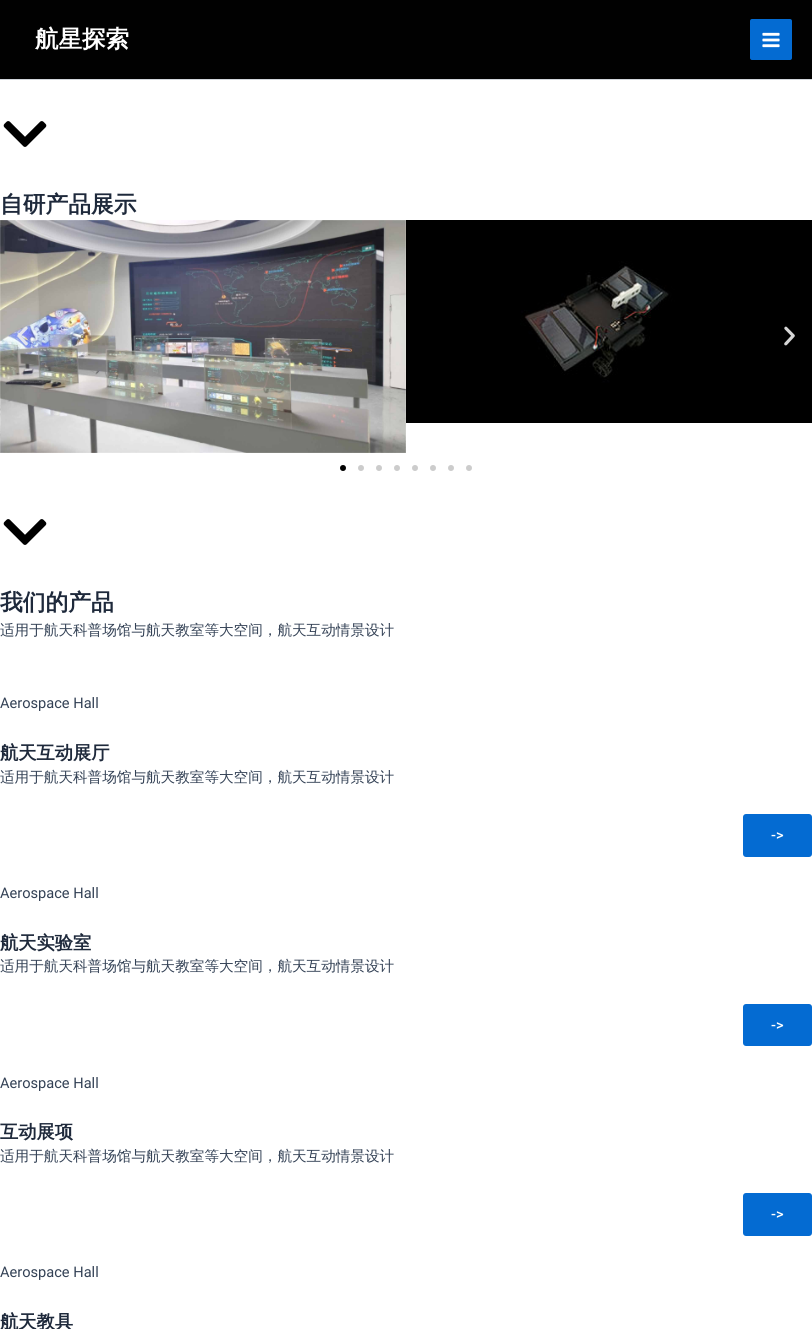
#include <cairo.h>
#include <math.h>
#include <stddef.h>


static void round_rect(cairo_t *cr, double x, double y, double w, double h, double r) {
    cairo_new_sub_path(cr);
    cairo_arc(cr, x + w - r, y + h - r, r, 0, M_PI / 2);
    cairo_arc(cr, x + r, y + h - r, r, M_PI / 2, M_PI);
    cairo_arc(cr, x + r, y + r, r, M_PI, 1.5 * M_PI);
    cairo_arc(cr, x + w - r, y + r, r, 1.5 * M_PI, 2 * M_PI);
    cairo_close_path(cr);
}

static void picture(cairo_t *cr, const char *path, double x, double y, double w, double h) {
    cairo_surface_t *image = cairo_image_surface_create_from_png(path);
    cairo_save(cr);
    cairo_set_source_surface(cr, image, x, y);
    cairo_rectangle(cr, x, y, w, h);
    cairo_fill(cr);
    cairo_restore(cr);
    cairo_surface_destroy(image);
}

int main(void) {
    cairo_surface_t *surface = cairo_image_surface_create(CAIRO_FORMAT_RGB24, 812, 1329);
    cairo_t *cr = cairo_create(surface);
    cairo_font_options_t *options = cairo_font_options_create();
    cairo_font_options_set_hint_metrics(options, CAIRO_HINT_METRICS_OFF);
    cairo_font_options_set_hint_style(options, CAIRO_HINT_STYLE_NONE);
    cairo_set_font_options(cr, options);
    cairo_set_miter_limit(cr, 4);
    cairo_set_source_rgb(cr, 1, 1, 1);
    cairo_paint(cr);
    cairo_set_source_rgb(cr, 0.004, 0.004, 0.004);
    cairo_rectangle(cr, 0, 0, 812, 79);
    cairo_fill(cr);
    cairo_set_source_rgb(cr, 0.82, 0.835, 0.859);
    cairo_rectangle(cr, 0, 79, 812, 1);
    cairo_fill(cr);
    cairo_select_font_face(cr, "WenQuanYi Zen Hei", CAIRO_FONT_SLANT_NORMAL, CAIRO_FONT_WEIGHT_BOLD);
    cairo_set_font_size(cr, 23.5);
    cairo_set_source_rgb(cr, 1, 1, 1);
    cairo_move_to(cr, 35, 47);
    cairo_show_text(cr, "航星探索");
    cairo_set_source_rgb(cr, 0.016, 0.42, 0.824);
    round_rect(cr, 750, 19, 42, 41, 2);
    cairo_fill(cr);
    picture(cr, "img1.png", 762, 32, 18, 16);
    picture(cr, "img2.png", 3, 121, 44, 26);
    cairo_set_font_size(cr, 22.75);
    cairo_set_source_rgb(cr, 0.118, 0.161, 0.231);
    cairo_move_to(cr, 0, 212);
    cairo_show_text(cr, "自研产品展示");
    picture(cr, "img3.png", 0, 220, 406, 233);
    picture(cr, "img4.png", 406, 220, 406, 203);
    picture(cr, "img5.png", 17, 326, 11, 20);
    picture(cr, "img6.png", 784, 326, 11, 20);
    cairo_set_source_rgb(cr, 0, 0, 0);
    cairo_arc(cr, 343, 468, 3, 0, 2 * M_PI);
    cairo_fill(cr);
    cairo_set_source_rgb(cr, 0.8, 0.8, 0.8);
    cairo_arc(cr, 361, 468, 3, 0, 2 * M_PI);
    cairo_fill(cr);
    cairo_arc(cr, 379, 468, 3, 0, 2 * M_PI);
    cairo_fill(cr);
    cairo_arc(cr, 397, 468, 3, 0, 2 * M_PI);
    cairo_fill(cr);
    cairo_arc(cr, 415, 468, 3, 0, 2 * M_PI);
    cairo_fill(cr);
    cairo_arc(cr, 433, 468, 3, 0, 2 * M_PI);
    cairo_fill(cr);
    cairo_arc(cr, 451, 468, 3, 0, 2 * M_PI);
    cairo_fill(cr);
    cairo_arc(cr, 469, 468, 3, 0, 2 * M_PI);
    cairo_fill(cr);
    picture(cr, "img2.png", 3, 519, 44, 26);
    cairo_set_source_rgb(cr, 0.118, 0.161, 0.231);
    cairo_move_to(cr, 0, 610);
    cairo_show_text(cr, "我们的产品");
    cairo_select_font_face(cr, "WenQuanYi Zen Hei Medium", CAIRO_FONT_SLANT_NORMAL, CAIRO_FONT_WEIGHT_NORMAL);
    cairo_set_font_size(cr, 14.6);
    cairo_set_source_rgb(cr, 0.2, 0.255, 0.333);
    cairo_move_to(cr, 0, 635);
    cairo_show_text(cr, "适用于航天科普场馆与航天教室等大空间，航天互动情景设计");
    cairo_select_font_face(cr, "Roboto", CAIRO_FONT_SLANT_NORMAL, CAIRO_FONT_WEIGHT_NORMAL);
    cairo_move_to(cr, 0, 708);
    cairo_show_text(cr, "Aerospace Hall");
    cairo_select_font_face(cr, "WenQuanYi Zen Hei", CAIRO_FONT_SLANT_NORMAL, CAIRO_FONT_WEIGHT_BOLD);
    cairo_set_font_size(cr, 18.25);
    cairo_set_source_rgb(cr, 0.118, 0.161, 0.231);
    cairo_move_to(cr, 0, 759);
    cairo_show_text(cr, "航天互动展厅");
    cairo_select_font_face(cr, "WenQuanYi Zen Hei Medium", CAIRO_FONT_SLANT_NORMAL, CAIRO_FONT_WEIGHT_NORMAL);
    cairo_set_font_size(cr, 14.6);
    cairo_set_source_rgb(cr, 0.2, 0.255, 0.333);
    cairo_move_to(cr, 0, 782);
    cairo_show_text(cr, "适用于航天科普场馆与航天教室等大空间，航天互动情景设计");
    cairo_set_source_rgb(cr, 0.016, 0.42, 0.824);
    round_rect(cr, 743, 814, 69, 43, 3);
    cairo_fill(cr);
    cairo_select_font_face(cr, "Roboto Medium", CAIRO_FONT_SLANT_NORMAL, CAIRO_FONT_WEIGHT_NORMAL);
    cairo_set_source_rgb(cr, 1, 1, 1);
    cairo_move_to(cr, 771, 840);
    cairo_show_text(cr, "->");
    cairo_select_font_face(cr, "Roboto", CAIRO_FONT_SLANT_NORMAL, CAIRO_FONT_WEIGHT_NORMAL);
    cairo_set_source_rgb(cr, 0.2, 0.255, 0.333);
    cairo_move_to(cr, 0, 898);
    cairo_show_text(cr, "Aerospace Hall");
    cairo_select_font_face(cr, "WenQuanYi Zen Hei", CAIRO_FONT_SLANT_NORMAL, CAIRO_FONT_WEIGHT_BOLD);
    cairo_set_font_size(cr, 18.25);
    cairo_set_source_rgb(cr, 0.118, 0.161, 0.231);
    cairo_move_to(cr, 0, 949);
    cairo_show_text(cr, "航天实验室");
    cairo_select_font_face(cr, "WenQuanYi Zen Hei Medium", CAIRO_FONT_SLANT_NORMAL, CAIRO_FONT_WEIGHT_NORMAL);
    cairo_set_font_size(cr, 14.6);
    cairo_set_source_rgb(cr, 0.2, 0.255, 0.333);
    cairo_move_to(cr, 0, 971);
    cairo_show_text(cr, "适用于航天科普场馆与航天教室等大空间，航天互动情景设计");
    cairo_set_source_rgb(cr, 0.016, 0.42, 0.824);
    round_rect(cr, 743, 1004, 69, 42, 3);
    cairo_fill(cr);
    cairo_select_font_face(cr, "Roboto Medium", CAIRO_FONT_SLANT_NORMAL, CAIRO_FONT_WEIGHT_NORMAL);
    cairo_set_source_rgb(cr, 1, 1, 1);
    cairo_move_to(cr, 771, 1030);
    cairo_show_text(cr, "->");
    cairo_select_font_face(cr, "Roboto", CAIRO_FONT_SLANT_NORMAL, CAIRO_FONT_WEIGHT_NORMAL);
    cairo_set_source_rgb(cr, 0.2, 0.255, 0.333);
    cairo_move_to(cr, 0, 1088);
    cairo_show_text(cr, "Aerospace Hall");
    cairo_select_font_face(cr, "WenQuanYi Zen Hei", CAIRO_FONT_SLANT_NORMAL, CAIRO_FONT_WEIGHT_BOLD);
    cairo_set_font_size(cr, 18.25);
    cairo_set_source_rgb(cr, 0.118, 0.161, 0.231);
    cairo_move_to(cr, 0, 1138);
    cairo_show_text(cr, "互动展项");
    cairo_select_font_face(cr, "WenQuanYi Zen Hei Medium", CAIRO_FONT_SLANT_NORMAL, CAIRO_FONT_WEIGHT_NORMAL);
    cairo_set_font_size(cr, 14.6);
    cairo_set_source_rgb(cr, 0.2, 0.255, 0.333);
    cairo_move_to(cr, 0, 1161);
    cairo_show_text(cr, "适用于航天科普场馆与航天教室等大空间，航天互动情景设计");
    cairo_set_source_rgb(cr, 0.016, 0.42, 0.824);
    round_rect(cr, 743, 1193, 69, 43, 3);
    cairo_fill(cr);
    cairo_select_font_face(cr, "Roboto Medium", CAIRO_FONT_SLANT_NORMAL, CAIRO_FONT_WEIGHT_NORMAL);
    cairo_set_source_rgb(cr, 1, 1, 1);
    cairo_move_to(cr, 771, 1219);
    cairo_show_text(cr, "->");
    cairo_select_font_face(cr, "Roboto", CAIRO_FONT_SLANT_NORMAL, CAIRO_FONT_WEIGHT_NORMAL);
    cairo_set_source_rgb(cr, 0.2, 0.255, 0.333);
    cairo_move_to(cr, 0, 1277);
    cairo_show_text(cr, "Aerospace Hall");
    cairo_select_font_face(cr, "WenQuanYi Zen Hei", CAIRO_FONT_SLANT_NORMAL, CAIRO_FONT_WEIGHT_BOLD);
    cairo_set_font_size(cr, 18.25);
    cairo_set_source_rgb(cr, 0.118, 0.161, 0.231);
    cairo_move_to(cr, 0, 1328);
    cairo_show_text(cr, "航天教具");
    cairo_surface_write_to_png(surface, "page.png");
    cairo_font_options_destroy(options);
    cairo_destroy(cr);
    cairo_surface_destroy(surface);
    return 0;
}
